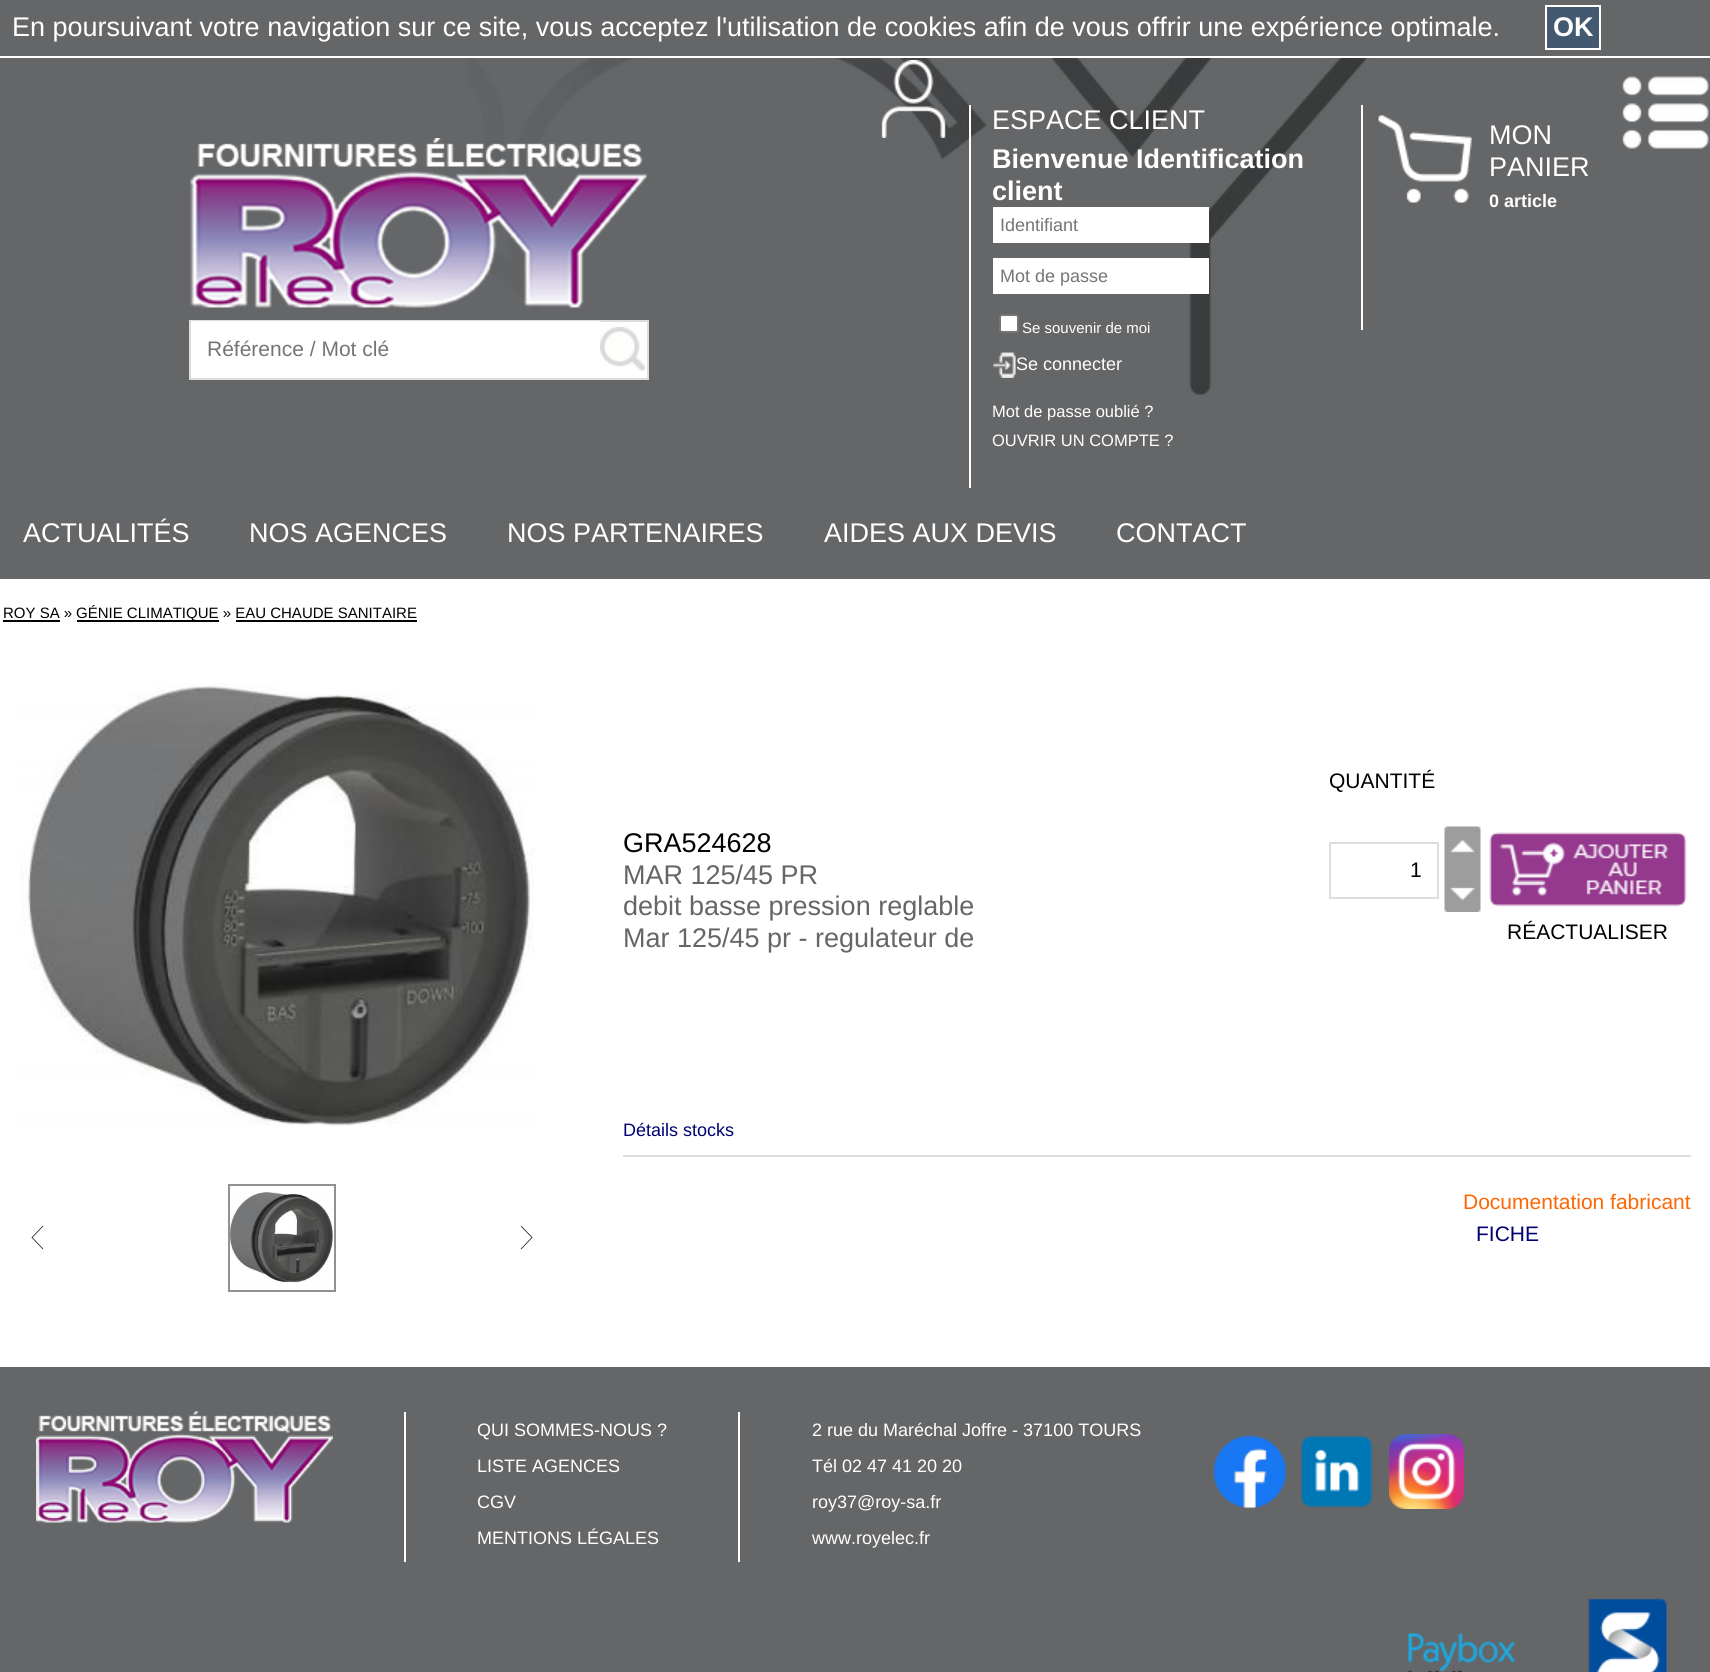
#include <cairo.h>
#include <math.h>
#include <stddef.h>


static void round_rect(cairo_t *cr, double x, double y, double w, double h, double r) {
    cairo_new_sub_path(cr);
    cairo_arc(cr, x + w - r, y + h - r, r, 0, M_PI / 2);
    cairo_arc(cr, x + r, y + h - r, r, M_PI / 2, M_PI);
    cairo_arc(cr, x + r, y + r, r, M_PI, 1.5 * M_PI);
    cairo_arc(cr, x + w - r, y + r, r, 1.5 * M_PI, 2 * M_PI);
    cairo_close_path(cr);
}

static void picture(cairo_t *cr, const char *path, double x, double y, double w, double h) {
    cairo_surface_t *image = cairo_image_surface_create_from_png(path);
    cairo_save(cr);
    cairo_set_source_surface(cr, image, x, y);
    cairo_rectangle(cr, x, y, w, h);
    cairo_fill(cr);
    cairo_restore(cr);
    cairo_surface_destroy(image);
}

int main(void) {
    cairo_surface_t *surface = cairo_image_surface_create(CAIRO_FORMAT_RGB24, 1710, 1672);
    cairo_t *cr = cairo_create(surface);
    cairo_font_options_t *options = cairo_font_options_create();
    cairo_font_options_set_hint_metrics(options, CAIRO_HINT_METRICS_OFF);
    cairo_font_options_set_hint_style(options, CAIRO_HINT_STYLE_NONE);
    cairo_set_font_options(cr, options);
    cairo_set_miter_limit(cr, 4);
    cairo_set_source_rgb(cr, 1, 1, 1);
    cairo_paint(cr);
    cairo_set_source_rgb(cr, 0.396, 0.4, 0.408);
    cairo_rectangle(cr, 0, 0, 1710, 56);
    cairo_fill(cr);
    cairo_select_font_face(cr, "Liberation Sans", CAIRO_FONT_SLANT_NORMAL, CAIRO_FONT_WEIGHT_NORMAL);
    cairo_set_font_size(cr, 27);
    cairo_set_source_rgb(cr, 1, 1, 1);
    cairo_move_to(cr, 12, 36);
    cairo_show_text(cr, "En poursuivant votre navigation sur ce site, vous acceptez l'utilisation de cookies afin de vous offrir une expérience optimale.");
    cairo_set_source_rgb(cr, 0.259, 0.349, 0.439);
    cairo_rectangle(cr, 1546, 6, 54, 43);
    cairo_fill_preserve(cr);
    cairo_set_source_rgb(cr, 1, 1, 1);
    cairo_stroke(cr);
    cairo_select_font_face(cr, "Liberation Sans", CAIRO_FONT_SLANT_NORMAL, CAIRO_FONT_WEIGHT_BOLD);
    cairo_move_to(cr, 1553, 36);
    cairo_show_text(cr, "OK");
    cairo_set_source_rgb(cr, 0.396, 0.4, 0.408);
    cairo_rectangle(cr, 0, 58, 1710, 521);
    cairo_fill(cr);
    picture(cr, "img1.png", 468, 58, 926, 337);
    picture(cr, "img2.png", 190, 138, 457, 170);
    cairo_set_source_rgb(cr, 1, 1, 1);
    cairo_rectangle(cr, 600, 322, 47, 56);
    cairo_fill(cr);
    cairo_set_source_rgb(cr, 0.867, 0.867, 0.867);
    cairo_rectangle(cr, 189, 320, 459, 2);
    cairo_fill(cr);
    cairo_rectangle(cr, 647, 320, 2, 60);
    cairo_fill(cr);
    cairo_rectangle(cr, 189, 378, 459, 2);
    cairo_fill(cr);
    cairo_rectangle(cr, 189, 320, 2, 60);
    cairo_fill(cr);
    cairo_set_source_rgb(cr, 1, 1, 1);
    cairo_rectangle(cr, 191, 321, 409, 57);
    cairo_fill(cr);
    cairo_select_font_face(cr, "Liberation Sans", CAIRO_FONT_SLANT_NORMAL, CAIRO_FONT_WEIGHT_NORMAL);
    cairo_set_font_size(cr, 21);
    cairo_set_source_rgb(cr, 0.459, 0.459, 0.459);
    cairo_move_to(cr, 207, 356);
    cairo_show_text(cr, "Référence / Mot clé");
    picture(cr, "img3.png", 600, 327, 46, 44);
    picture(cr, "img4.png", 881, 60, 65, 78);
    cairo_set_source_rgb(cr, 1, 1, 1);
    cairo_rectangle(cr, 969, 105, 2, 383);
    cairo_fill(cr);
    cairo_set_font_size(cr, 27);
    cairo_move_to(cr, 992, 129);
    cairo_show_text(cr, "ESPACE CLIENT");
    cairo_select_font_face(cr, "Liberation Sans", CAIRO_FONT_SLANT_NORMAL, CAIRO_FONT_WEIGHT_BOLD);
    cairo_move_to(cr, 992, 168);
    cairo_show_text(cr, "Bienvenue Identification");
    cairo_move_to(cr, 992, 200);
    cairo_show_text(cr, "client");
    cairo_rectangle(cr, 993, 207, 216, 36);
    cairo_fill(cr);
    cairo_select_font_face(cr, "Liberation Sans", CAIRO_FONT_SLANT_NORMAL, CAIRO_FONT_WEIGHT_NORMAL);
    cairo_set_font_size(cr, 18);
    cairo_set_source_rgb(cr, 0.459, 0.459, 0.459);
    cairo_move_to(cr, 1000, 231);
    cairo_show_text(cr, "Identifiant");
    cairo_set_source_rgb(cr, 1, 1, 1);
    cairo_rectangle(cr, 993, 258, 216, 36);
    cairo_fill(cr);
    cairo_set_source_rgb(cr, 0.459, 0.459, 0.459);
    cairo_move_to(cr, 1000, 282);
    cairo_show_text(cr, "Mot de passe");
    cairo_set_source_rgb(cr, 1, 1, 1);
    round_rect(cr, 1000, 315, 18, 17, 2);
    cairo_fill_preserve(cr);
    cairo_set_source_rgb(cr, 0.463, 0.463, 0.463);
    cairo_stroke(cr);
    cairo_set_font_size(cr, 15);
    cairo_set_source_rgb(cr, 1, 1, 1);
    cairo_move_to(cr, 1022, 333);
    cairo_show_text(cr, "Se souvenir de moi");
    picture(cr, "img5.png", 993, 352, 23, 26);
    cairo_set_font_size(cr, 18);
    cairo_move_to(cr, 1016, 370);
    cairo_show_text(cr, "Se connecter");
    cairo_set_font_size(cr, 16.5);
    cairo_move_to(cr, 992, 417);
    cairo_show_text(cr, "Mot de passe oublié ?");
    cairo_move_to(cr, 992, 446);
    cairo_show_text(cr, "OUVRIR UN COMPTE ?");
    cairo_rectangle(cr, 1361, 105, 2, 225);
    cairo_fill(cr);
    picture(cr, "img6.png", 1378, 115, 94, 88);
    cairo_set_font_size(cr, 27);
    cairo_move_to(cr, 1489, 144);
    cairo_show_text(cr, "MON");
    cairo_move_to(cr, 1489, 176);
    cairo_show_text(cr, "PANIER");
    cairo_select_font_face(cr, "Liberation Sans", CAIRO_FONT_SLANT_NORMAL, CAIRO_FONT_WEIGHT_BOLD);
    cairo_set_font_size(cr, 18);
    cairo_move_to(cr, 1489, 207);
    cairo_show_text(cr, "0 article");
    picture(cr, "img7.png", 1622, 76, 87, 73);
    cairo_select_font_face(cr, "Liberation Sans", CAIRO_FONT_SLANT_NORMAL, CAIRO_FONT_WEIGHT_NORMAL);
    cairo_set_font_size(cr, 27);
    cairo_move_to(cr, 23, 542);
    cairo_show_text(cr, "ACTUALITÉS");
    cairo_move_to(cr, 249, 542);
    cairo_show_text(cr, "NOS AGENCES");
    cairo_move_to(cr, 507, 542);
    cairo_show_text(cr, "NOS PARTENAIRES");
    cairo_move_to(cr, 824, 542);
    cairo_show_text(cr, "AIDES AUX DEVIS");
    cairo_move_to(cr, 1116, 542);
    cairo_show_text(cr, "CONTACT");
    cairo_set_font_size(cr, 15);
    cairo_set_source_rgb(cr, 0, 0, 0);
    cairo_move_to(cr, 3, 618);
    cairo_show_text(cr, "ROY SA »");
    cairo_rectangle(cr, 3, 620, 57, 2);
    cairo_fill(cr);
    cairo_rectangle(cr, 77, 620, 142, 2);
    cairo_fill(cr);
    cairo_move_to(cr, 76, 618);
    cairo_show_text(cr, "GÉNIE CLIMATIQUE » EAU CHAUDE SANITAIRE");
    cairo_rectangle(cr, 236, 620, 181, 2);
    cairo_fill(cr);
    picture(cr, "img8.png", 20, 683, 514, 443);
    cairo_new_path(cr);
    cairo_move_to(cr, 43, 1226);
    cairo_line_to(cr, 32, 1237.5);
    cairo_line_to(cr, 43, 1249);
    cairo_set_line_width(cr, 0.7);
    cairo_stroke(cr);
    picture(cr, "img9.png", 230, 1192, 103, 91);
    cairo_rectangle(cr, 229, 1185, 106, 106);
    cairo_set_source_rgb(cr, 0.569, 0.569, 0.569);
    cairo_set_line_width(cr, 2);
    cairo_stroke(cr);
    cairo_new_path(cr);
    cairo_move_to(cr, 521, 1226);
    cairo_line_to(cr, 532, 1237.5);
    cairo_line_to(cr, 521, 1249);
    cairo_set_source_rgb(cr, 0, 0, 0);
    cairo_set_line_width(cr, 0.7);
    cairo_stroke(cr);
    cairo_set_font_size(cr, 27);
    cairo_move_to(cr, 623, 852);
    cairo_show_text(cr, "GRA524628");
    cairo_set_source_rgb(cr, 0.396, 0.4, 0.408);
    cairo_move_to(cr, 623, 884);
    cairo_show_text(cr, "MAR 125/45 PR");
    cairo_move_to(cr, 623, 915);
    cairo_show_text(cr, "debit basse pression reglable");
    cairo_move_to(cr, 623, 947);
    cairo_show_text(cr, "Mar 125/45 pr - regulateur de");
    cairo_set_font_size(cr, 21);
    cairo_set_source_rgb(cr, 0, 0, 0);
    cairo_move_to(cr, 1329, 788);
    cairo_show_text(cr, "QUANTITÉ");
    cairo_rectangle(cr, 1330, 843, 108, 55);
    cairo_set_source_rgb(cr, 0.867, 0.867, 0.867);
    cairo_set_line_width(cr, 2);
    cairo_stroke(cr);
    cairo_set_source_rgb(cr, 0, 0, 0);
    cairo_move_to(cr, 1410, 877);
    cairo_show_text(cr, "1");
    picture(cr, "img10.png", 1444, 826, 37, 44);
    picture(cr, "img11.png", 1489, 832, 198, 75);
    picture(cr, "img12.png", 1444, 870, 37, 42);
    cairo_move_to(cr, 1507, 939);
    cairo_show_text(cr, "RÉACTUALISER");
    cairo_set_font_size(cr, 18);
    cairo_set_source_rgb(cr, 0, 0, 0.451);
    cairo_move_to(cr, 623, 1136);
    cairo_show_text(cr, "Détails stocks");
    cairo_set_source_rgb(cr, 0.867, 0.867, 0.867);
    cairo_rectangle(cr, 623, 1155, 1068, 2);
    cairo_fill(cr);
    cairo_set_font_size(cr, 21);
    cairo_set_source_rgb(cr, 0.996, 0.4, 0.012);
    cairo_move_to(cr, 1463, 1209);
    cairo_show_text(cr, "Documentation fabricant");
    cairo_set_source_rgb(cr, 0, 0, 0.451);
    cairo_move_to(cr, 1476, 1241);
    cairo_show_text(cr, "FICHE");
    cairo_set_source_rgb(cr, 0.396, 0.4, 0.408);
    cairo_rectangle(cr, 0, 1367, 1710, 305);
    cairo_fill(cr);
    picture(cr, "img13.png", 36, 1411, 297, 112);
    cairo_set_source_rgb(cr, 1, 1, 1);
    cairo_rectangle(cr, 404, 1412, 2, 150);
    cairo_fill(cr);
    cairo_set_font_size(cr, 18);
    cairo_move_to(cr, 477, 1436);
    cairo_show_text(cr, "QUI SOMMES-NOUS ?");
    cairo_move_to(cr, 477, 1472);
    cairo_show_text(cr, "LISTE AGENCES");
    cairo_move_to(cr, 477, 1508);
    cairo_show_text(cr, "CGV");
    cairo_move_to(cr, 477, 1544);
    cairo_show_text(cr, "MENTIONS LÉGALES");
    cairo_rectangle(cr, 738, 1412, 2, 150);
    cairo_fill(cr);
    cairo_move_to(cr, 812, 1436);
    cairo_show_text(cr, "2 rue du Maréchal Joffre - 37100 TOURS");
    cairo_move_to(cr, 812, 1472);
    cairo_show_text(cr, "Tél 02 47 41 20 20");
    cairo_move_to(cr, 812, 1508);
    cairo_show_text(cr, "roy37@roy-sa.fr");
    cairo_move_to(cr, 812, 1544);
    cairo_show_text(cr, "www.royelec.fr");
    picture(cr, "img14.png", 1213, 1435, 74, 74);
    picture(cr, "img15.png", 1300, 1435, 73, 73);
    picture(cr, "img16.png", 1389, 1434, 75, 75);
    picture(cr, "img17.png", 1408, 1633, 107, 39);
    picture(cr, "img18.png", 1588, 1598, 79, 74);
    cairo_surface_write_to_png(surface, "page.png");
    cairo_font_options_destroy(options);
    cairo_destroy(cr);
    cairo_surface_destroy(surface);
    return 0;
}
